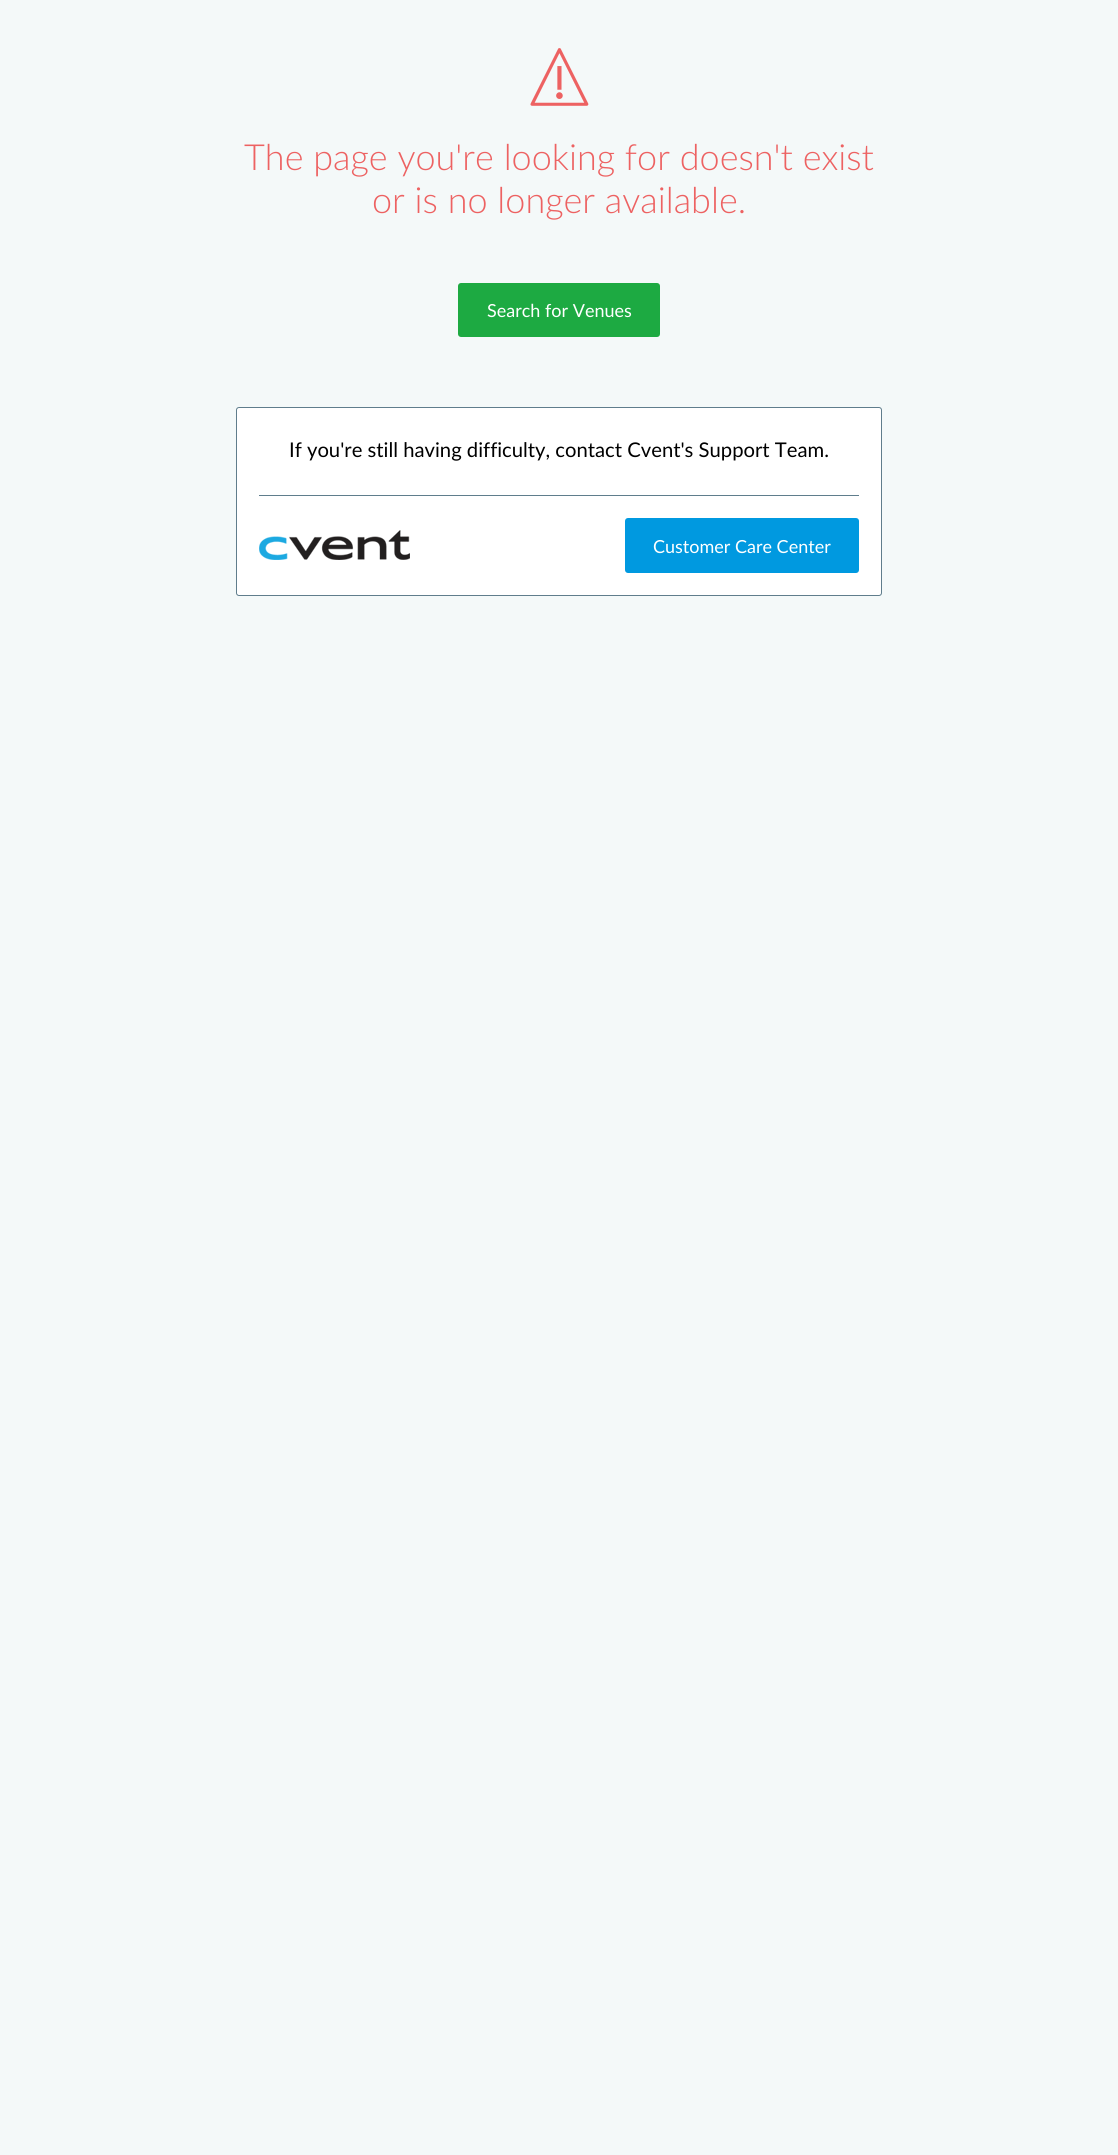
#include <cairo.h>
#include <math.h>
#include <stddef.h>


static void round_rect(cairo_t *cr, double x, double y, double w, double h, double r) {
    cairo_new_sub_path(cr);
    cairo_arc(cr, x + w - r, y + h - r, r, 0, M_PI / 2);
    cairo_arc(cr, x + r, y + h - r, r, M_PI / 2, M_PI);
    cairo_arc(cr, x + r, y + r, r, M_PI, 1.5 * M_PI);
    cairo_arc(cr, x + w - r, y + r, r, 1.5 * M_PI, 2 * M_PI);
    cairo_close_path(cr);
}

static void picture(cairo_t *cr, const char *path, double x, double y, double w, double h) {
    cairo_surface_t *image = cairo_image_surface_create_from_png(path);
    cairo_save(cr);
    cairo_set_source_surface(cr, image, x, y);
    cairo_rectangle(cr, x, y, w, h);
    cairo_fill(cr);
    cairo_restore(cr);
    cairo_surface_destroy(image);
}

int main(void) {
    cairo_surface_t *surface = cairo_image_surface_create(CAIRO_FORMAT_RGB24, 1118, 2155);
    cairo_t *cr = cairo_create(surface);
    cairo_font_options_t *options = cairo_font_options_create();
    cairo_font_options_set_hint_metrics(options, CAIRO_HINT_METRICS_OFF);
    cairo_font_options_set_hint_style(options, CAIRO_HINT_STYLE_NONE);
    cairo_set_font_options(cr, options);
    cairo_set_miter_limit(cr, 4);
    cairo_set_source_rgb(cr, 0.957, 0.973, 0.976);
    cairo_paint(cr);
    picture(cr, "img1.png", 530, 48, 59, 58);
    cairo_select_font_face(cr, "Lato Light", CAIRO_FONT_SLANT_NORMAL, CAIRO_FONT_WEIGHT_NORMAL);
    cairo_set_font_size(cr, 36);
    cairo_set_source_rgb(cr, 0.929, 0.384, 0.384);
    cairo_move_to(cr, 244, 170);
    cairo_show_text(cr, "The page you're looking for doesn't exist");
    cairo_move_to(cr, 372, 213);
    cairo_show_text(cr, "or is no longer available.");
    cairo_set_source_rgb(cr, 0.114, 0.667, 0.259);
    round_rect(cr, 458, 283, 202, 54, 3);
    cairo_fill(cr);
    cairo_select_font_face(cr, "Lato", CAIRO_FONT_SLANT_NORMAL, CAIRO_FONT_WEIGHT_NORMAL);
    cairo_set_font_size(cr, 18);
    cairo_set_source_rgb(cr, 1, 1, 1);
    cairo_move_to(cr, 487, 317);
    cairo_show_text(cr, "Search for Venues");
    round_rect(cr, 236.5, 407.5, 645, 188, 2.5);
    cairo_fill_preserve(cr);
    cairo_set_source_rgb(cr, 0.373, 0.49, 0.549);
    cairo_set_line_width(cr, 1);
    cairo_stroke(cr);
    cairo_rectangle(cr, 259, 495, 600, 1);
    cairo_fill(cr);
    cairo_set_font_size(cr, 20.25);
    cairo_set_source_rgb(cr, 0, 0, 0);
    cairo_move_to(cr, 289, 457);
    cairo_show_text(cr, "If you're still having difficulty, contact Cvent's Support Team.");
    picture(cr, "img2.png", 259, 530, 151, 30);
    cairo_set_source_rgb(cr, 0, 0.6, 0.878);
    round_rect(cr, 625, 518, 234, 55, 3);
    cairo_fill(cr);
    cairo_set_font_size(cr, 18);
    cairo_set_source_rgb(cr, 1, 1, 1);
    cairo_move_to(cr, 653, 553);
    cairo_show_text(cr, "Customer Care Center");
    cairo_surface_write_to_png(surface, "page.png");
    cairo_font_options_destroy(options);
    cairo_destroy(cr);
    cairo_surface_destroy(surface);
    return 0;
}
